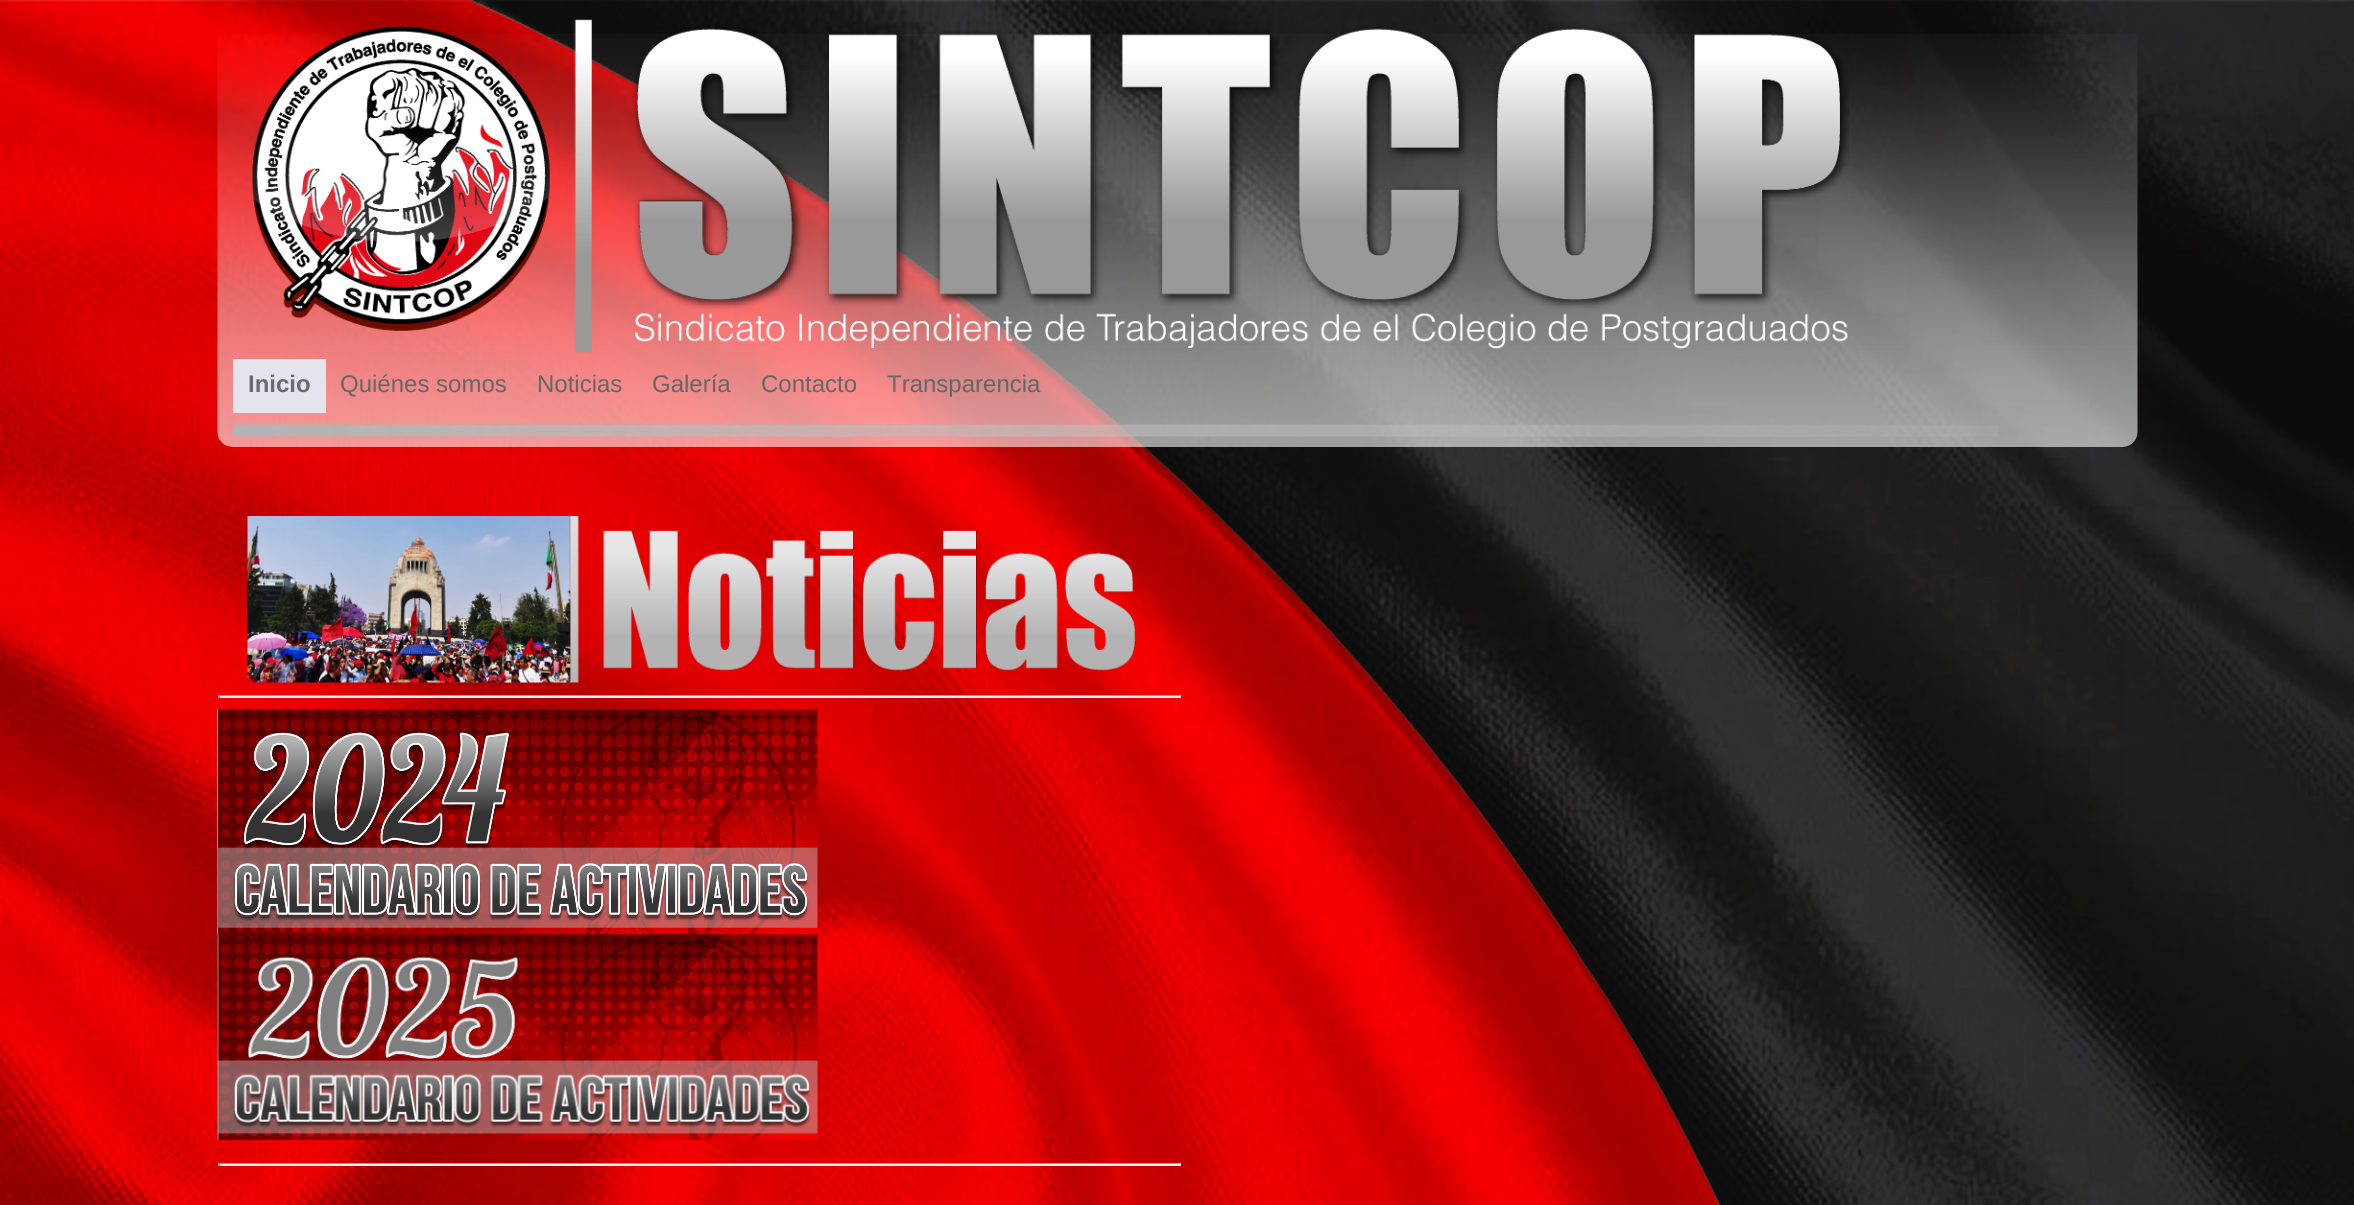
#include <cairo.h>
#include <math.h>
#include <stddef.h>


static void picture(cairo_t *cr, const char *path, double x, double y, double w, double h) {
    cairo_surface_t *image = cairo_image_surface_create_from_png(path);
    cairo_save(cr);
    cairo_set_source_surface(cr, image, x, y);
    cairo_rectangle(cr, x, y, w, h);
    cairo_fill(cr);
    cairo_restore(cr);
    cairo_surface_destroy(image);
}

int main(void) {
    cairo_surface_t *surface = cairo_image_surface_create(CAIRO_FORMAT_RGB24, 2354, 1205);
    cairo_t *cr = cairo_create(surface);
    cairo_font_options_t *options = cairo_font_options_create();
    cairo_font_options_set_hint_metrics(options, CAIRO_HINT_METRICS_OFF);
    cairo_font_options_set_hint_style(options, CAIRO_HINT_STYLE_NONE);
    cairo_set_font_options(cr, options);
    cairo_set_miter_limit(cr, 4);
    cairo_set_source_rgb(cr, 1, 1, 1);
    cairo_paint(cr);
    picture(cr, "img1.png", 0, 0, 2354, 1205);
    picture(cr, "img2.png", 217, 34, 1921, 413);
    picture(cr, "img3.png", 252, 19, 1597, 334);
    cairo_set_source_rgb(cr, 0.894, 0.894, 0.925);
    cairo_rectangle(cr, 233, 359, 93, 54);
    cairo_fill(cr);
    cairo_select_font_face(cr, "Liberation Sans", CAIRO_FONT_SLANT_NORMAL, CAIRO_FONT_WEIGHT_BOLD);
    cairo_set_font_size(cr, 24);
    cairo_set_source_rgb(cr, 0.424, 0.416, 0.416);
    cairo_move_to(cr, 248, 392);
    cairo_show_text(cr, "Inicio");
    cairo_select_font_face(cr, "Liberation Sans", CAIRO_FONT_SLANT_NORMAL, CAIRO_FONT_WEIGHT_NORMAL);
    cairo_set_source_rgb(cr, 0.4, 0.4, 0.4);
    cairo_move_to(cr, 340, 392);
    cairo_show_text(cr, "Quiénes somos");
    cairo_move_to(cr, 537, 392);
    cairo_show_text(cr, "Noticias");
    cairo_move_to(cr, 652, 392);
    cairo_show_text(cr, "Galería");
    cairo_move_to(cr, 761, 392);
    cairo_show_text(cr, "Contacto");
    cairo_move_to(cr, 887, 392);
    cairo_show_text(cr, "Transparencia");
    picture(cr, "img4.png", 232, 424, 1766, 13);
    picture(cr, "img5.png", 247, 516, 889, 167);
    cairo_set_source_rgb(cr, 0.624, 0.624, 0.624);
    cairo_rectangle(cr, 218, 695, 963, 1);
    cairo_fill(cr);
    cairo_set_source_rgb(cr, 0.933, 0.933, 0.933);
    cairo_rectangle(cr, 1179, 695, 2, 3);
    cairo_fill(cr);
    cairo_rectangle(cr, 218, 696, 963, 2);
    cairo_fill(cr);
    cairo_set_source_rgb(cr, 0.624, 0.624, 0.624);
    cairo_rectangle(cr, 218, 695, 2, 3);
    cairo_fill(cr);
    picture(cr, "img6.png", 217, 709, 601, 226);
    picture(cr, "img7.png", 217, 934, 601, 206);
    cairo_rectangle(cr, 218, 1163, 963, 1);
    cairo_fill(cr);
    cairo_set_source_rgb(cr, 0.933, 0.933, 0.933);
    cairo_rectangle(cr, 1179, 1163, 2, 3);
    cairo_fill(cr);
    cairo_rectangle(cr, 218, 1164, 963, 2);
    cairo_fill(cr);
    cairo_set_source_rgb(cr, 0.624, 0.624, 0.624);
    cairo_rectangle(cr, 218, 1163, 2, 3);
    cairo_fill(cr);
    cairo_surface_write_to_png(surface, "page.png");
    cairo_font_options_destroy(options);
    cairo_destroy(cr);
    cairo_surface_destroy(surface);
    return 0;
}
